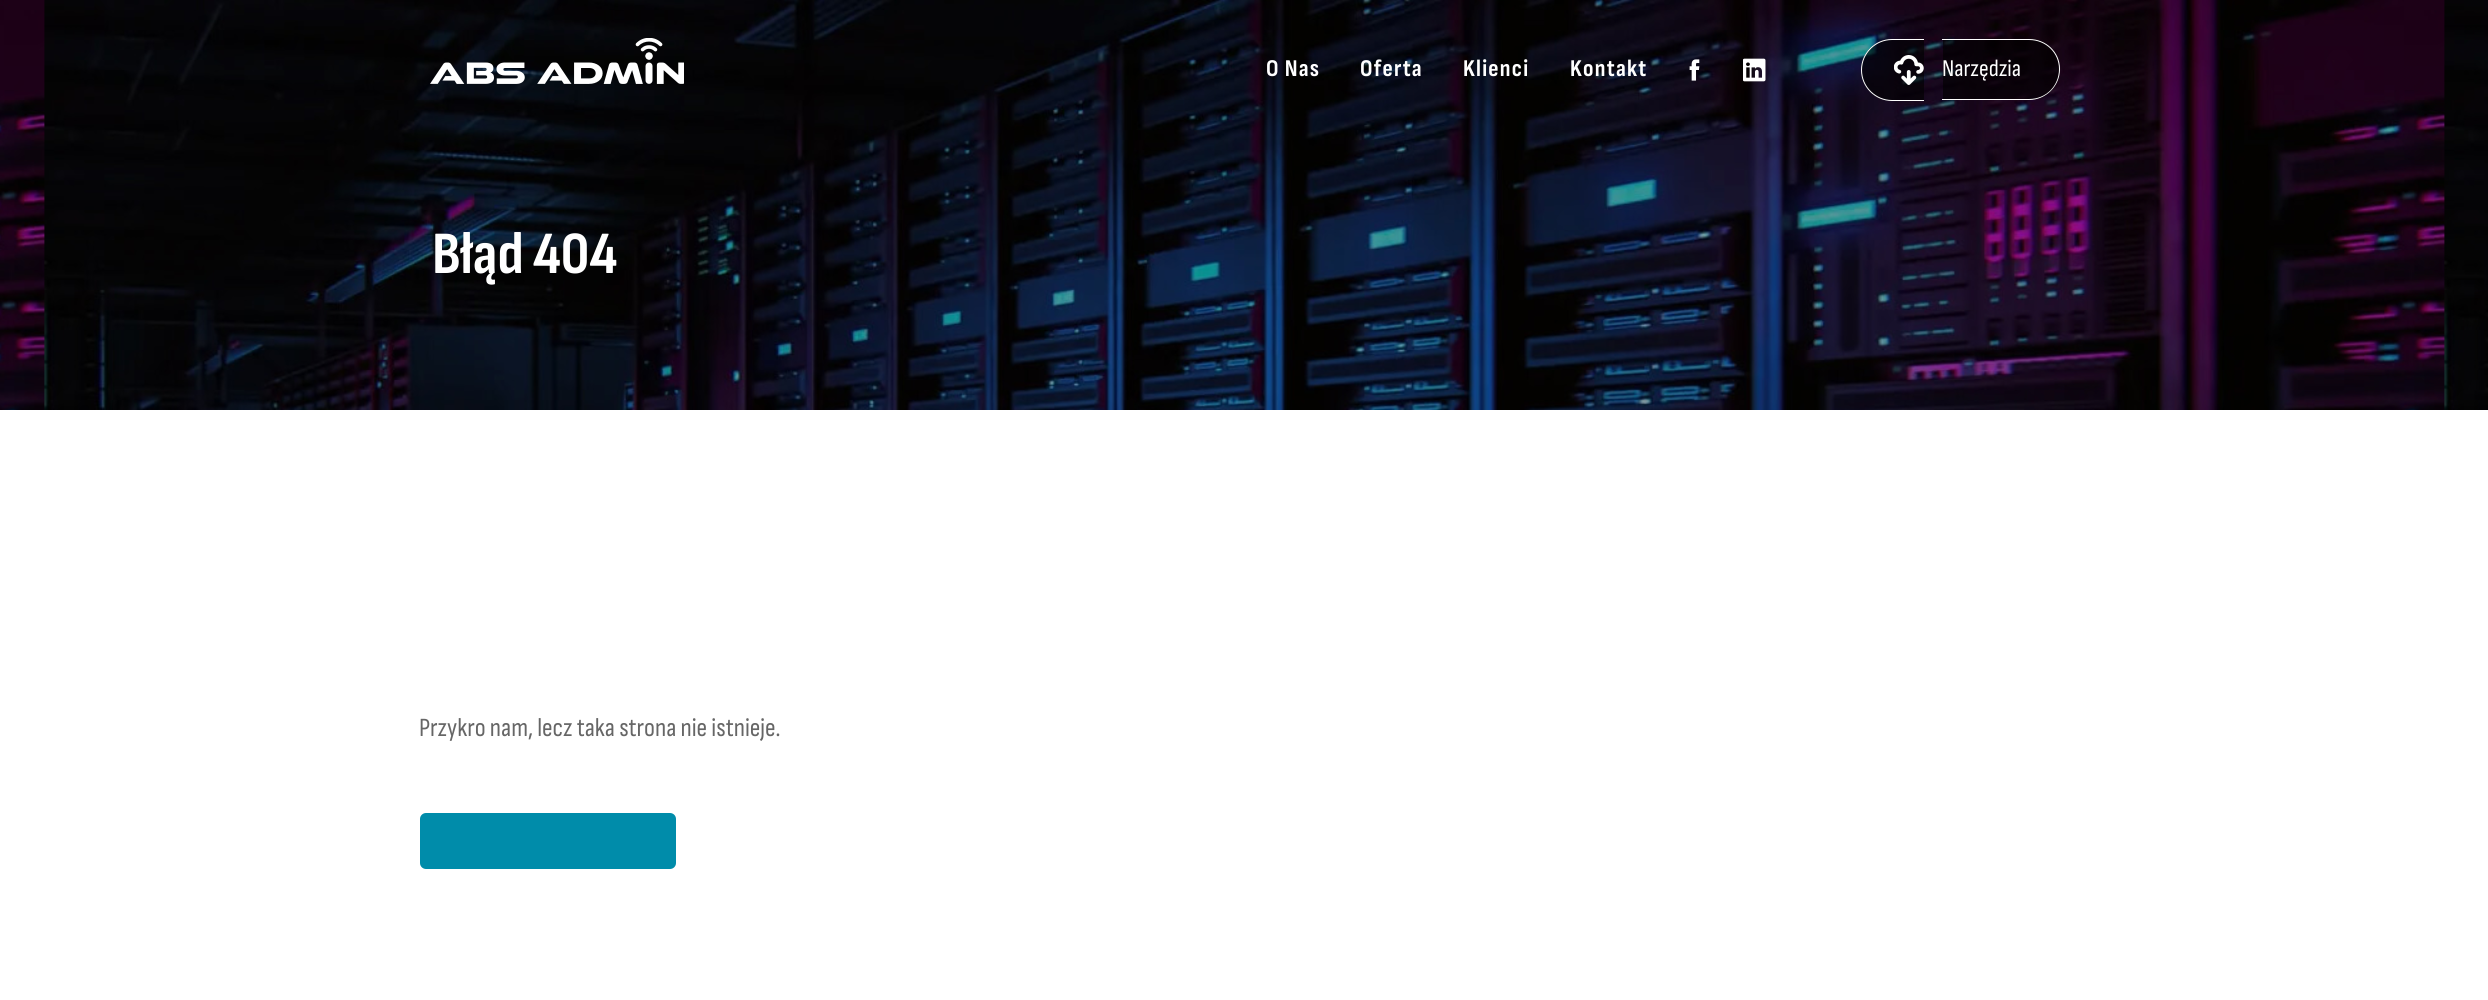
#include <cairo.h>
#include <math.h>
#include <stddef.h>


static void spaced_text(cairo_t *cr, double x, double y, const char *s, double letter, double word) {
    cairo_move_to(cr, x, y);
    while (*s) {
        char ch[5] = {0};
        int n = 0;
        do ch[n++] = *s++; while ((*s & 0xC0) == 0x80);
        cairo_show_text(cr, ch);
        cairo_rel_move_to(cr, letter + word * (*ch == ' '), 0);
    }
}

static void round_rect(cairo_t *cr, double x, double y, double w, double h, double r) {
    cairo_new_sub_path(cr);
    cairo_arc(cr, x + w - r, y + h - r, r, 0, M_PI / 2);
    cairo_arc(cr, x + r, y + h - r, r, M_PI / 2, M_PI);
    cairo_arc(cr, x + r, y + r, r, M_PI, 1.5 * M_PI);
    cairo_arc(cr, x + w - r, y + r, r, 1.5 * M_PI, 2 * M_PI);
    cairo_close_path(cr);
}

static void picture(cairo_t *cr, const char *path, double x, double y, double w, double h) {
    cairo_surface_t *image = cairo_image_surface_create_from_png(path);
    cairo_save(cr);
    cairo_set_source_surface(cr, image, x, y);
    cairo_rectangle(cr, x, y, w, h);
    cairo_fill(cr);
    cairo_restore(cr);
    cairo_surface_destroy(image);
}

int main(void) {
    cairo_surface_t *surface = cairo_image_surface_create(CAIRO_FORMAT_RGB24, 2488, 1000);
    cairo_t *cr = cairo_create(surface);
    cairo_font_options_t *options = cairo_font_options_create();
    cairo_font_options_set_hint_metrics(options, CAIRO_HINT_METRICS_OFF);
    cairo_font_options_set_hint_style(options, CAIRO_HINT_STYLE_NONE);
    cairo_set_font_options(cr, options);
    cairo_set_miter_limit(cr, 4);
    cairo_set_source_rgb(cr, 1, 1, 1);
    cairo_paint(cr);
    picture(cr, "img5.png", 0, 0, 2488, 410);
    picture(cr, "img1.png", 430, 38, 254, 46);
    cairo_select_font_face(cr, "Sofia Sans Condensed", CAIRO_FONT_SLANT_NORMAL, CAIRO_FONT_WEIGHT_BOLD);
    cairo_set_font_size(cr, 24);
    cairo_set_source_rgb(cr, 1, 1, 1);
    spaced_text(cr, 1266, 76, "O Nas", 1.25, 0);
    spaced_text(cr, 1360, 76, "Oferta", 1.25, 0);
    spaced_text(cr, 1463, 76, "Klienci", 1.25, 0);
    spaced_text(cr, 1570, 76, "Kontakt", 1.25, 0);
    picture(cr, "img2.png", 1689, 59, 11, 22);
    picture(cr, "img3.png", 1743, 58, 23, 24);
    cairo_set_source_rgba(cr, 0, 0, 0, 0.62);
    cairo_new_path(cr);
    cairo_move_to(cr, 1892, 39);
    cairo_line_to(cr, 1924, 39);
    cairo_line_to(cr, 1924, 101);
    cairo_line_to(cr, 1892, 101);
    cairo_curve_to(cr, 1875, 101, 1861, 87, 1861, 70);
    cairo_curve_to(cr, 1861, 53, 1875, 39, 1892, 39);
    cairo_close_path(cr);
    cairo_fill(cr);
    cairo_set_source_rgb(cr, 1, 1, 1);
    cairo_set_fill_rule(cr, CAIRO_FILL_RULE_EVEN_ODD);
    cairo_new_path(cr);
    cairo_move_to(cr, 1892, 39);
    cairo_line_to(cr, 1924, 39);
    cairo_line_to(cr, 1924, 101);
    cairo_line_to(cr, 1892, 101);
    cairo_curve_to(cr, 1875, 101, 1861, 87, 1861, 70);
    cairo_curve_to(cr, 1861, 53, 1875, 39, 1892, 39);
    cairo_close_path(cr);
    cairo_move_to(cr, 1892, 40);
    cairo_line_to(cr, 1924, 40);
    cairo_line_to(cr, 1924, 100);
    cairo_line_to(cr, 1892, 100);
    cairo_curve_to(cr, 1876, 100, 1862, 87, 1862, 70);
    cairo_curve_to(cr, 1862, 53, 1876, 40, 1892, 40);
    cairo_close_path(cr);
    cairo_fill(cr);
    cairo_set_source_rgba(cr, 0, 0, 0, 0.62);
    cairo_new_path(cr);
    cairo_move_to(cr, 1943, 39);
    cairo_line_to(cr, 2029.5, 39);
    cairo_curve_to(cr, 2046.5, 39, 2060, 52.5, 2060, 69.5);
    cairo_curve_to(cr, 2060, 86.5, 2046.5, 100, 2029.5, 100);
    cairo_line_to(cr, 1943, 100);
    cairo_close_path(cr);
    cairo_fill(cr);
    cairo_set_source_rgb(cr, 1, 1, 1);
    cairo_new_path(cr);
    cairo_move_to(cr, 1942, 39);
    cairo_line_to(cr, 2029, 39);
    cairo_curve_to(cr, 2046, 39, 2060, 52, 2060, 69);
    cairo_curve_to(cr, 2060, 86, 2046, 100, 2029, 100);
    cairo_line_to(cr, 1942, 100);
    cairo_close_path(cr);
    cairo_move_to(cr, 1942, 40);
    cairo_line_to(cr, 2029, 40);
    cairo_curve_to(cr, 2046, 40, 2059, 53, 2059, 69);
    cairo_curve_to(cr, 2059, 86, 2046, 99, 2029, 99);
    cairo_line_to(cr, 1942, 99);
    cairo_close_path(cr);
    cairo_fill(cr);
    picture(cr, "img4.png", 1894, 55, 30, 30);
    cairo_select_font_face(cr, "Sofia Sans Condensed", CAIRO_FONT_SLANT_NORMAL, CAIRO_FONT_WEIGHT_NORMAL);
    cairo_move_to(cr, 1942, 76);
    cairo_show_text(cr, "Narzędzia");
    cairo_select_font_face(cr, "Sofia Sans Condensed", CAIRO_FONT_SLANT_NORMAL, CAIRO_FONT_WEIGHT_BOLD);
    cairo_set_font_size(cr, 60);
    cairo_move_to(cr, 432, 273);
    cairo_show_text(cr, "Błąd 404");
    cairo_select_font_face(cr, "Sofia Sans Condensed", CAIRO_FONT_SLANT_NORMAL, CAIRO_FONT_WEIGHT_NORMAL);
    cairo_set_font_size(cr, 26.25);
    cairo_set_source_rgb(cr, 0.4, 0.4, 0.4);
    cairo_move_to(cr, 419, 736);
    cairo_show_text(cr, "Przykro nam, lecz taka strona nie istnieje.");
    cairo_set_source_rgb(cr, 0, 0.549, 0.667);
    round_rect(cr, 420, 813, 256, 56, 6);
    cairo_fill(cr);
    cairo_surface_write_to_png(surface, "page.png");
    cairo_font_options_destroy(options);
    cairo_destroy(cr);
    cairo_surface_destroy(surface);
    return 0;
}
